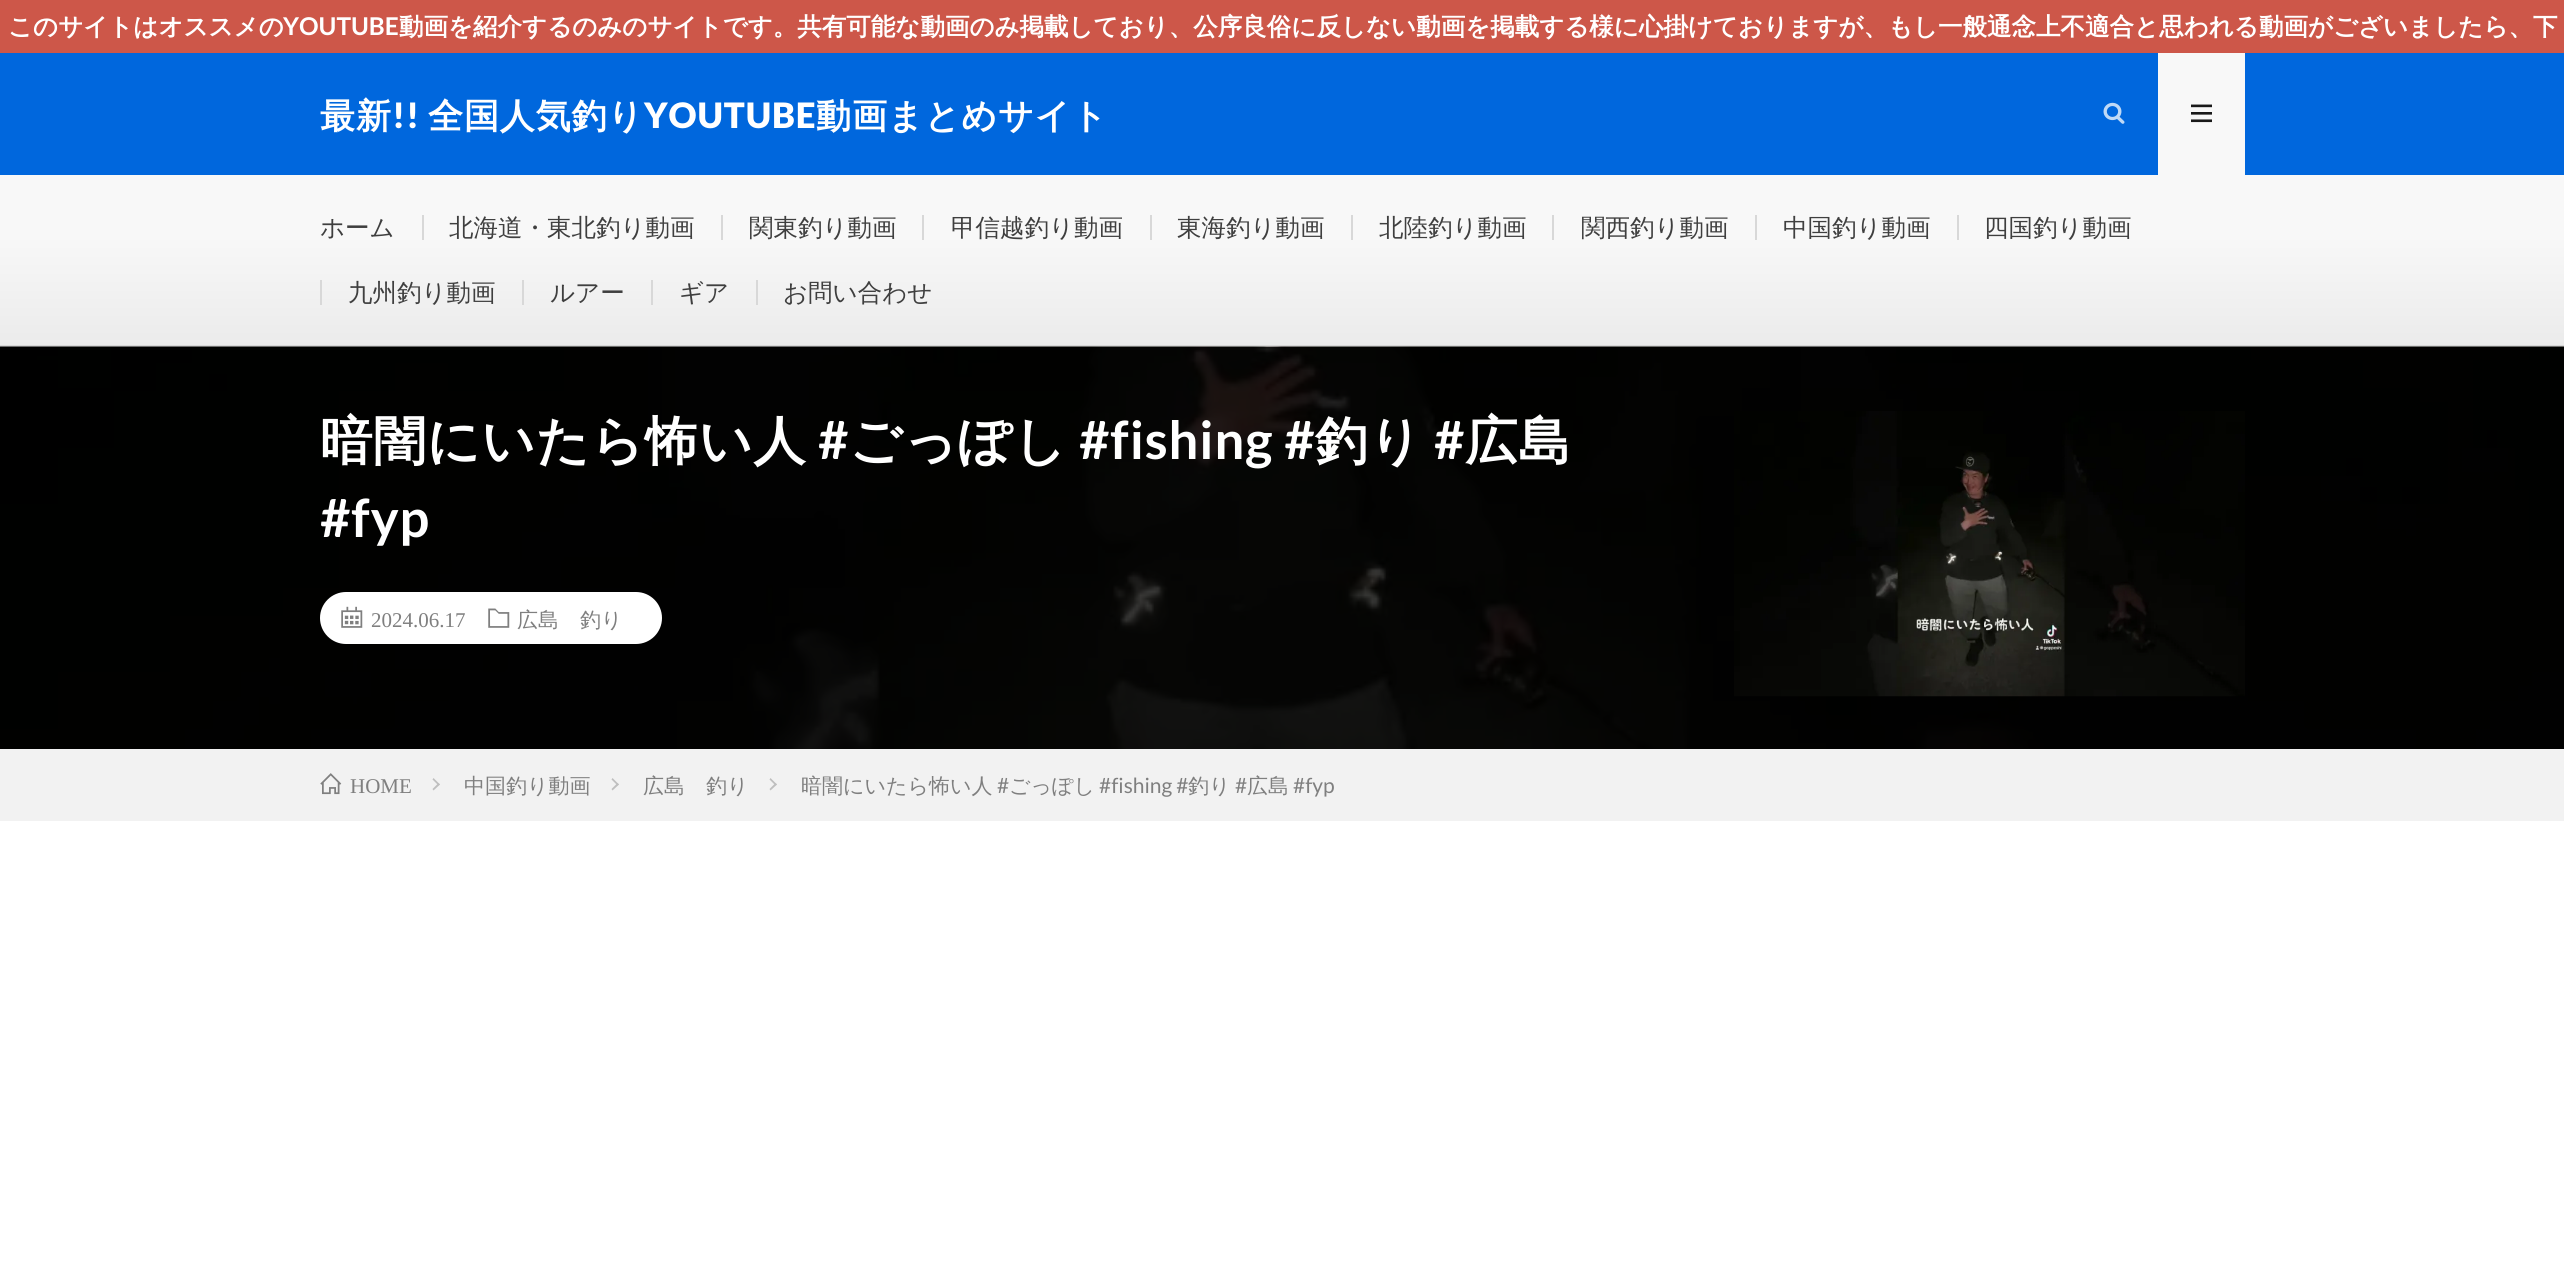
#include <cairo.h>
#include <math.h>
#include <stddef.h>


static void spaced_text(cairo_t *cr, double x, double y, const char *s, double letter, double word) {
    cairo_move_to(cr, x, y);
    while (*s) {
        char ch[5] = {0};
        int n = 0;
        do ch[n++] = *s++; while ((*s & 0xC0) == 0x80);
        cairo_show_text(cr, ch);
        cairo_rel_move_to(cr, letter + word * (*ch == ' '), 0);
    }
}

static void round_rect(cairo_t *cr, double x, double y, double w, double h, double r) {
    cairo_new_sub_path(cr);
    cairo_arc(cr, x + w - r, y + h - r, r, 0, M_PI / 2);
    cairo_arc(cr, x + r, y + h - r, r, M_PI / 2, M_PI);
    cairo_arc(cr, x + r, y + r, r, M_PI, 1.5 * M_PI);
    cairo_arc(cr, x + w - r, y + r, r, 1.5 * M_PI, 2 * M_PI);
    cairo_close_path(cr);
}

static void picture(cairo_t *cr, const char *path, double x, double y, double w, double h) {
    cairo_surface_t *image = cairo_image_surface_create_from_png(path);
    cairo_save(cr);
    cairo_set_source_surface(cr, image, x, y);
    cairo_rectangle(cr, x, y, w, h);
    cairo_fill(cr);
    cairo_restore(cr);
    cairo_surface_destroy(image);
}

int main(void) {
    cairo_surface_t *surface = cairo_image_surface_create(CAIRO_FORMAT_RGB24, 2564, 1287);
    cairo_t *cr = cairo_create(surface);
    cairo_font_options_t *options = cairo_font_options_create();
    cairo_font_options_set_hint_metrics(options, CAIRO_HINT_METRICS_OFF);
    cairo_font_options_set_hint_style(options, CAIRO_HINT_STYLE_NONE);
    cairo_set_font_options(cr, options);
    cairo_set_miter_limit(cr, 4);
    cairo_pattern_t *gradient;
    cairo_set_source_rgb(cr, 1, 1, 1);
    cairo_paint(cr);
    cairo_set_source_rgb(cr, 0.804, 0.341, 0.286);
    cairo_rectangle(cr, 0, 0, 2564, 53);
    cairo_fill(cr);
    cairo_select_font_face(cr, "WenQuanYi Zen Hei", CAIRO_FONT_SLANT_NORMAL, CAIRO_FONT_WEIGHT_BOLD);
    cairo_set_font_size(cr, 24.5);
    cairo_set_source_rgb(cr, 1, 1, 1);
    cairo_move_to(cr, 8, 35);
    cairo_show_text(cr, "このサイトはオススメの");
    cairo_select_font_face(cr, "Lato", CAIRO_FONT_SLANT_NORMAL, CAIRO_FONT_WEIGHT_BOLD);
    cairo_move_to(cr, 283, 35);
    cairo_show_text(cr, "YOUTUBE");
    cairo_select_font_face(cr, "WenQuanYi Zen Hei", CAIRO_FONT_SLANT_NORMAL, CAIRO_FONT_WEIGHT_BOLD);
    cairo_move_to(cr, 399, 35);
    cairo_show_text(cr, "動画を紹介するのみのサイトです。共有可能な動画のみ掲載しており、公序良俗に反しない動画を掲載する様に心掛けておりますが、もし一般通念上不適合と思われる動画がございましたら、下");
    cairo_set_source_rgb(cr, 0, 0.404, 0.867);
    cairo_rectangle(cr, 0, 53, 2564, 122);
    cairo_fill(cr);
    cairo_set_font_size(cr, 35);
    cairo_set_source_rgb(cr, 1, 1, 1);
    spaced_text(cr, 320, 128, "最新", 0.9, 0);
    cairo_select_font_face(cr, "Lato Black", CAIRO_FONT_SLANT_NORMAL, CAIRO_FONT_WEIGHT_NORMAL);
    spaced_text(cr, 392, 128, "!!", 0.9, 0);
    cairo_select_font_face(cr, "WenQuanYi Zen Hei", CAIRO_FONT_SLANT_NORMAL, CAIRO_FONT_WEIGHT_BOLD);
    spaced_text(cr, 428, 128, "全国人気釣り", 0.9, 0);
    cairo_select_font_face(cr, "Lato Black", CAIRO_FONT_SLANT_NORMAL, CAIRO_FONT_WEIGHT_NORMAL);
    spaced_text(cr, 644, 128, "YOUTUBE", 0.9, 0);
    cairo_select_font_face(cr, "WenQuanYi Zen Hei", CAIRO_FONT_SLANT_NORMAL, CAIRO_FONT_WEIGHT_BOLD);
    spaced_text(cr, 816, 128, "動画まとめサイト", 0.9, 0);
    picture(cr, "img1.png", 2103, 102, 22, 22);
    cairo_set_source_rgb(cr, 0.969, 0.969, 0.969);
    cairo_rectangle(cr, 2158, 53, 87, 122);
    cairo_fill(cr);
    picture(cr, "img2.png", 2191, 104, 21, 19);
    cairo_set_source_rgb(cr, 0.847, 0.847, 0.847);
    cairo_rectangle(cr, 0, 345, 2564, 2);
    cairo_fill(cr);
    gradient = cairo_pattern_create_linear(1283, 175, 1283, 345);
    cairo_pattern_add_color_stop_rgba(gradient, 0, 0.973, 0.973, 0.973, 1);
    cairo_pattern_add_color_stop_rgba(gradient, 0.35, 0.973, 0.973, 0.973, 1);
    cairo_pattern_add_color_stop_rgba(gradient, 1, 0.922, 0.922, 0.922, 1);
    cairo_set_source(cr, gradient);
    cairo_pattern_destroy(gradient);
    cairo_rectangle(cr, 0, 175, 2564, 170);
    cairo_fill(cr);
    cairo_select_font_face(cr, "WenQuanYi Zen Hei Medium", CAIRO_FONT_SLANT_NORMAL, CAIRO_FONT_WEIGHT_NORMAL);
    cairo_set_font_size(cr, 24.5);
    cairo_set_source_rgb(cr, 0.247, 0.247, 0.247);
    cairo_move_to(cr, 320, 236);
    cairo_show_text(cr, "ホーム");
    cairo_set_source_rgb(cr, 0.847, 0.847, 0.847);
    cairo_rectangle(cr, 422, 215, 2, 25);
    cairo_fill(cr);
    cairo_set_source_rgb(cr, 0.247, 0.247, 0.247);
    cairo_move_to(cr, 449, 236);
    cairo_show_text(cr, "北海道・東北釣り動画");
    cairo_set_source_rgb(cr, 0.847, 0.847, 0.847);
    cairo_rectangle(cr, 721, 215, 2, 25);
    cairo_fill(cr);
    cairo_set_source_rgb(cr, 0.247, 0.247, 0.247);
    cairo_move_to(cr, 749, 236);
    cairo_show_text(cr, "関東釣り動画");
    cairo_set_source_rgb(cr, 0.847, 0.847, 0.847);
    cairo_rectangle(cr, 922, 215, 2, 25);
    cairo_fill(cr);
    cairo_set_source_rgb(cr, 0.247, 0.247, 0.247);
    cairo_move_to(cr, 951, 236);
    cairo_show_text(cr, "甲信越釣り動画");
    cairo_set_source_rgb(cr, 0.847, 0.847, 0.847);
    cairo_rectangle(cr, 1150, 215, 2, 25);
    cairo_fill(cr);
    cairo_set_source_rgb(cr, 0.247, 0.247, 0.247);
    cairo_move_to(cr, 1177, 236);
    cairo_show_text(cr, "東海釣り動画");
    cairo_set_source_rgb(cr, 0.847, 0.847, 0.847);
    cairo_rectangle(cr, 1351, 215, 2, 25);
    cairo_fill(cr);
    cairo_set_source_rgb(cr, 0.247, 0.247, 0.247);
    cairo_move_to(cr, 1379, 236);
    cairo_show_text(cr, "北陸釣り動画");
    cairo_set_source_rgb(cr, 0.847, 0.847, 0.847);
    cairo_rectangle(cr, 1552, 215, 2, 25);
    cairo_fill(cr);
    cairo_set_source_rgb(cr, 0.247, 0.247, 0.247);
    cairo_move_to(cr, 1581, 236);
    cairo_show_text(cr, "関西釣り動画");
    cairo_set_source_rgb(cr, 0.847, 0.847, 0.847);
    cairo_rectangle(cr, 1755, 215, 2, 25);
    cairo_fill(cr);
    cairo_set_source_rgb(cr, 0.247, 0.247, 0.247);
    cairo_move_to(cr, 1783, 236);
    cairo_show_text(cr, "中国釣り動画");
    cairo_set_source_rgb(cr, 0.847, 0.847, 0.847);
    cairo_rectangle(cr, 1957, 215, 2, 25);
    cairo_fill(cr);
    cairo_set_source_rgb(cr, 0.247, 0.247, 0.247);
    cairo_move_to(cr, 1984, 236);
    cairo_show_text(cr, "四国釣り動画");
    cairo_set_source_rgb(cr, 0.847, 0.847, 0.847);
    cairo_rectangle(cr, 320, 280, 2, 25);
    cairo_fill(cr);
    cairo_set_source_rgb(cr, 0.247, 0.247, 0.247);
    cairo_move_to(cr, 348, 301);
    cairo_show_text(cr, "九州釣り動画");
    cairo_set_source_rgb(cr, 0.847, 0.847, 0.847);
    cairo_rectangle(cr, 522, 280, 2, 25);
    cairo_fill(cr);
    cairo_set_source_rgb(cr, 0.247, 0.247, 0.247);
    cairo_move_to(cr, 550, 301);
    cairo_show_text(cr, "ルアー");
    cairo_set_source_rgb(cr, 0.847, 0.847, 0.847);
    cairo_rectangle(cr, 651, 280, 2, 25);
    cairo_fill(cr);
    cairo_set_source_rgb(cr, 0.247, 0.247, 0.247);
    cairo_move_to(cr, 679, 301);
    cairo_show_text(cr, "ギア");
    cairo_set_source_rgb(cr, 0.847, 0.847, 0.847);
    cairo_rectangle(cr, 756, 280, 2, 25);
    cairo_fill(cr);
    cairo_set_source_rgb(cr, 0.247, 0.247, 0.247);
    cairo_move_to(cr, 783, 301);
    cairo_show_text(cr, "お問い合わせ");
    picture(cr, "img3.png", 0, 346, 2564, 403);
    cairo_select_font_face(cr, "WenQuanYi Zen Hei", CAIRO_FONT_SLANT_NORMAL, CAIRO_FONT_WEIGHT_BOLD);
    cairo_set_font_size(cr, 52.5);
    cairo_set_source_rgb(cr, 1, 1, 1);
    spaced_text(cr, 320, 459, "暗闇にいたら怖い人", 0.9, 0);
    cairo_select_font_face(cr, "Lato", CAIRO_FONT_SLANT_NORMAL, CAIRO_FONT_WEIGHT_BOLD);
    spaced_text(cr, 818, 459, "#", 0.9, 0);
    cairo_select_font_face(cr, "WenQuanYi Zen Hei", CAIRO_FONT_SLANT_NORMAL, CAIRO_FONT_WEIGHT_BOLD);
    spaced_text(cr, 849, 459, "ごっぽし", 0.9, 0);
    cairo_select_font_face(cr, "Lato", CAIRO_FONT_SLANT_NORMAL, CAIRO_FONT_WEIGHT_BOLD);
    spaced_text(cr, 1079, 459, "#fishing #", 0.9, 0);
    cairo_select_font_face(cr, "WenQuanYi Zen Hei", CAIRO_FONT_SLANT_NORMAL, CAIRO_FONT_WEIGHT_BOLD);
    spaced_text(cr, 1315, 459, "釣り", 0.9, 0);
    cairo_select_font_face(cr, "Lato", CAIRO_FONT_SLANT_NORMAL, CAIRO_FONT_WEIGHT_BOLD);
    spaced_text(cr, 1434, 459, "#", 0.9, 0);
    cairo_select_font_face(cr, "WenQuanYi Zen Hei", CAIRO_FONT_SLANT_NORMAL, CAIRO_FONT_WEIGHT_BOLD);
    spaced_text(cr, 1465, 459, "広島", 0.9, 0);
    cairo_select_font_face(cr, "Lato", CAIRO_FONT_SLANT_NORMAL, CAIRO_FONT_WEIGHT_BOLD);
    spaced_text(cr, 320, 537, "#fyp", 0.9, 0);
    round_rect(cr, 320, 592, 342, 52, 26);
    cairo_fill(cr);
    picture(cr, "img4.png", 341, 606, 22, 22);
    cairo_select_font_face(cr, "Liberation Serif", CAIRO_FONT_SLANT_NORMAL, CAIRO_FONT_WEIGHT_NORMAL);
    cairo_set_font_size(cr, 21);
    cairo_set_source_rgb(cr, 0.498, 0.498, 0.498);
    cairo_move_to(cr, 371, 627);
    cairo_show_text(cr, "2024.06.17");
    picture(cr, "img5.png", 488, 608, 22, 20);
    cairo_select_font_face(cr, "WenQuanYi Zen Hei Medium", CAIRO_FONT_SLANT_NORMAL, CAIRO_FONT_WEIGHT_NORMAL);
    cairo_move_to(cr, 517, 627);
    cairo_show_text(cr, "広島　釣り");
    picture(cr, "img6.png", 1734, 411, 511, 286);
    cairo_set_source_rgb(cr, 0.949, 0.949, 0.949);
    cairo_rectangle(cr, 0, 749, 2564, 72);
    cairo_fill(cr);
    picture(cr, "img7.png", 320, 773, 22, 22);
    cairo_select_font_face(cr, "Liberation Serif", CAIRO_FONT_SLANT_NORMAL, CAIRO_FONT_WEIGHT_NORMAL);
    cairo_set_source_rgb(cr, 0.498, 0.498, 0.498);
    cairo_move_to(cr, 350, 793);
    cairo_show_text(cr, "HOME");
    cairo_set_source_rgb(cr, 0.749, 0.749, 0.749);
    cairo_new_path(cr);
    cairo_move_to(cr, 433.5, 778);
    cairo_line_to(cr, 440, 784.5);
    cairo_line_to(cr, 438.5, 785.5);
    cairo_line_to(cr, 432.5, 779.5);
    cairo_close_path(cr);
    cairo_fill(cr);
    cairo_new_path(cr);
    cairo_move_to(cr, 438.5, 783);
    cairo_line_to(cr, 440, 784.5);
    cairo_line_to(cr, 433.5, 790.5);
    cairo_line_to(cr, 432.5, 789);
    cairo_close_path(cr);
    cairo_fill(cr);
    cairo_select_font_face(cr, "WenQuanYi Zen Hei Medium", CAIRO_FONT_SLANT_NORMAL, CAIRO_FONT_WEIGHT_NORMAL);
    cairo_set_source_rgb(cr, 0.498, 0.498, 0.498);
    cairo_move_to(cr, 464, 793);
    cairo_show_text(cr, "中国釣り動画");
    cairo_set_source_rgb(cr, 0.749, 0.749, 0.749);
    cairo_new_path(cr);
    cairo_move_to(cr, 612.5, 778);
    cairo_line_to(cr, 619, 784.5);
    cairo_line_to(cr, 617.5, 785.5);
    cairo_line_to(cr, 611.5, 779.5);
    cairo_close_path(cr);
    cairo_fill(cr);
    cairo_new_path(cr);
    cairo_move_to(cr, 617.5, 783);
    cairo_line_to(cr, 619, 784.5);
    cairo_line_to(cr, 612.5, 790.5);
    cairo_line_to(cr, 611.5, 789);
    cairo_close_path(cr);
    cairo_fill(cr);
    cairo_set_source_rgb(cr, 0.498, 0.498, 0.498);
    cairo_move_to(cr, 643, 793);
    cairo_show_text(cr, "広島　釣り");
    cairo_set_source_rgb(cr, 0.749, 0.749, 0.749);
    cairo_new_path(cr);
    cairo_move_to(cr, 770.5, 778);
    cairo_line_to(cr, 777, 784.5);
    cairo_line_to(cr, 775.5, 785.5);
    cairo_line_to(cr, 769.5, 779.5);
    cairo_close_path(cr);
    cairo_fill(cr);
    cairo_new_path(cr);
    cairo_move_to(cr, 775.5, 783);
    cairo_line_to(cr, 777, 784.5);
    cairo_line_to(cr, 770.5, 790.5);
    cairo_line_to(cr, 769.5, 789);
    cairo_close_path(cr);
    cairo_fill(cr);
    cairo_set_source_rgb(cr, 0.498, 0.498, 0.498);
    cairo_move_to(cr, 801, 793);
    cairo_show_text(cr, "暗闇にいたら怖い人");
    cairo_select_font_face(cr, "Lato", CAIRO_FONT_SLANT_NORMAL, CAIRO_FONT_WEIGHT_NORMAL);
    cairo_move_to(cr, 997, 793);
    cairo_show_text(cr, "#");
    cairo_select_font_face(cr, "WenQuanYi Zen Hei Medium", CAIRO_FONT_SLANT_NORMAL, CAIRO_FONT_WEIGHT_NORMAL);
    cairo_move_to(cr, 1009, 793);
    cairo_show_text(cr, "ごっぽし");
    cairo_select_font_face(cr, "Lato", CAIRO_FONT_SLANT_NORMAL, CAIRO_FONT_WEIGHT_NORMAL);
    cairo_move_to(cr, 1099, 793);
    cairo_show_text(cr, "#fishing #");
    cairo_select_font_face(cr, "WenQuanYi Zen Hei Medium", CAIRO_FONT_SLANT_NORMAL, CAIRO_FONT_WEIGHT_NORMAL);
    cairo_move_to(cr, 1188, 793);
    cairo_show_text(cr, "釣り");
    cairo_select_font_face(cr, "Lato", CAIRO_FONT_SLANT_NORMAL, CAIRO_FONT_WEIGHT_NORMAL);
    cairo_move_to(cr, 1235, 793);
    cairo_show_text(cr, "#");
    cairo_select_font_face(cr, "WenQuanYi Zen Hei Medium", CAIRO_FONT_SLANT_NORMAL, CAIRO_FONT_WEIGHT_NORMAL);
    cairo_move_to(cr, 1247, 793);
    cairo_show_text(cr, "広島");
    cairo_select_font_face(cr, "Lato", CAIRO_FONT_SLANT_NORMAL, CAIRO_FONT_WEIGHT_NORMAL);
    cairo_move_to(cr, 1293, 793);
    cairo_show_text(cr, "#fyp");
    cairo_surface_write_to_png(surface, "page.png");
    cairo_font_options_destroy(options);
    cairo_destroy(cr);
    cairo_surface_destroy(surface);
    return 0;
}
